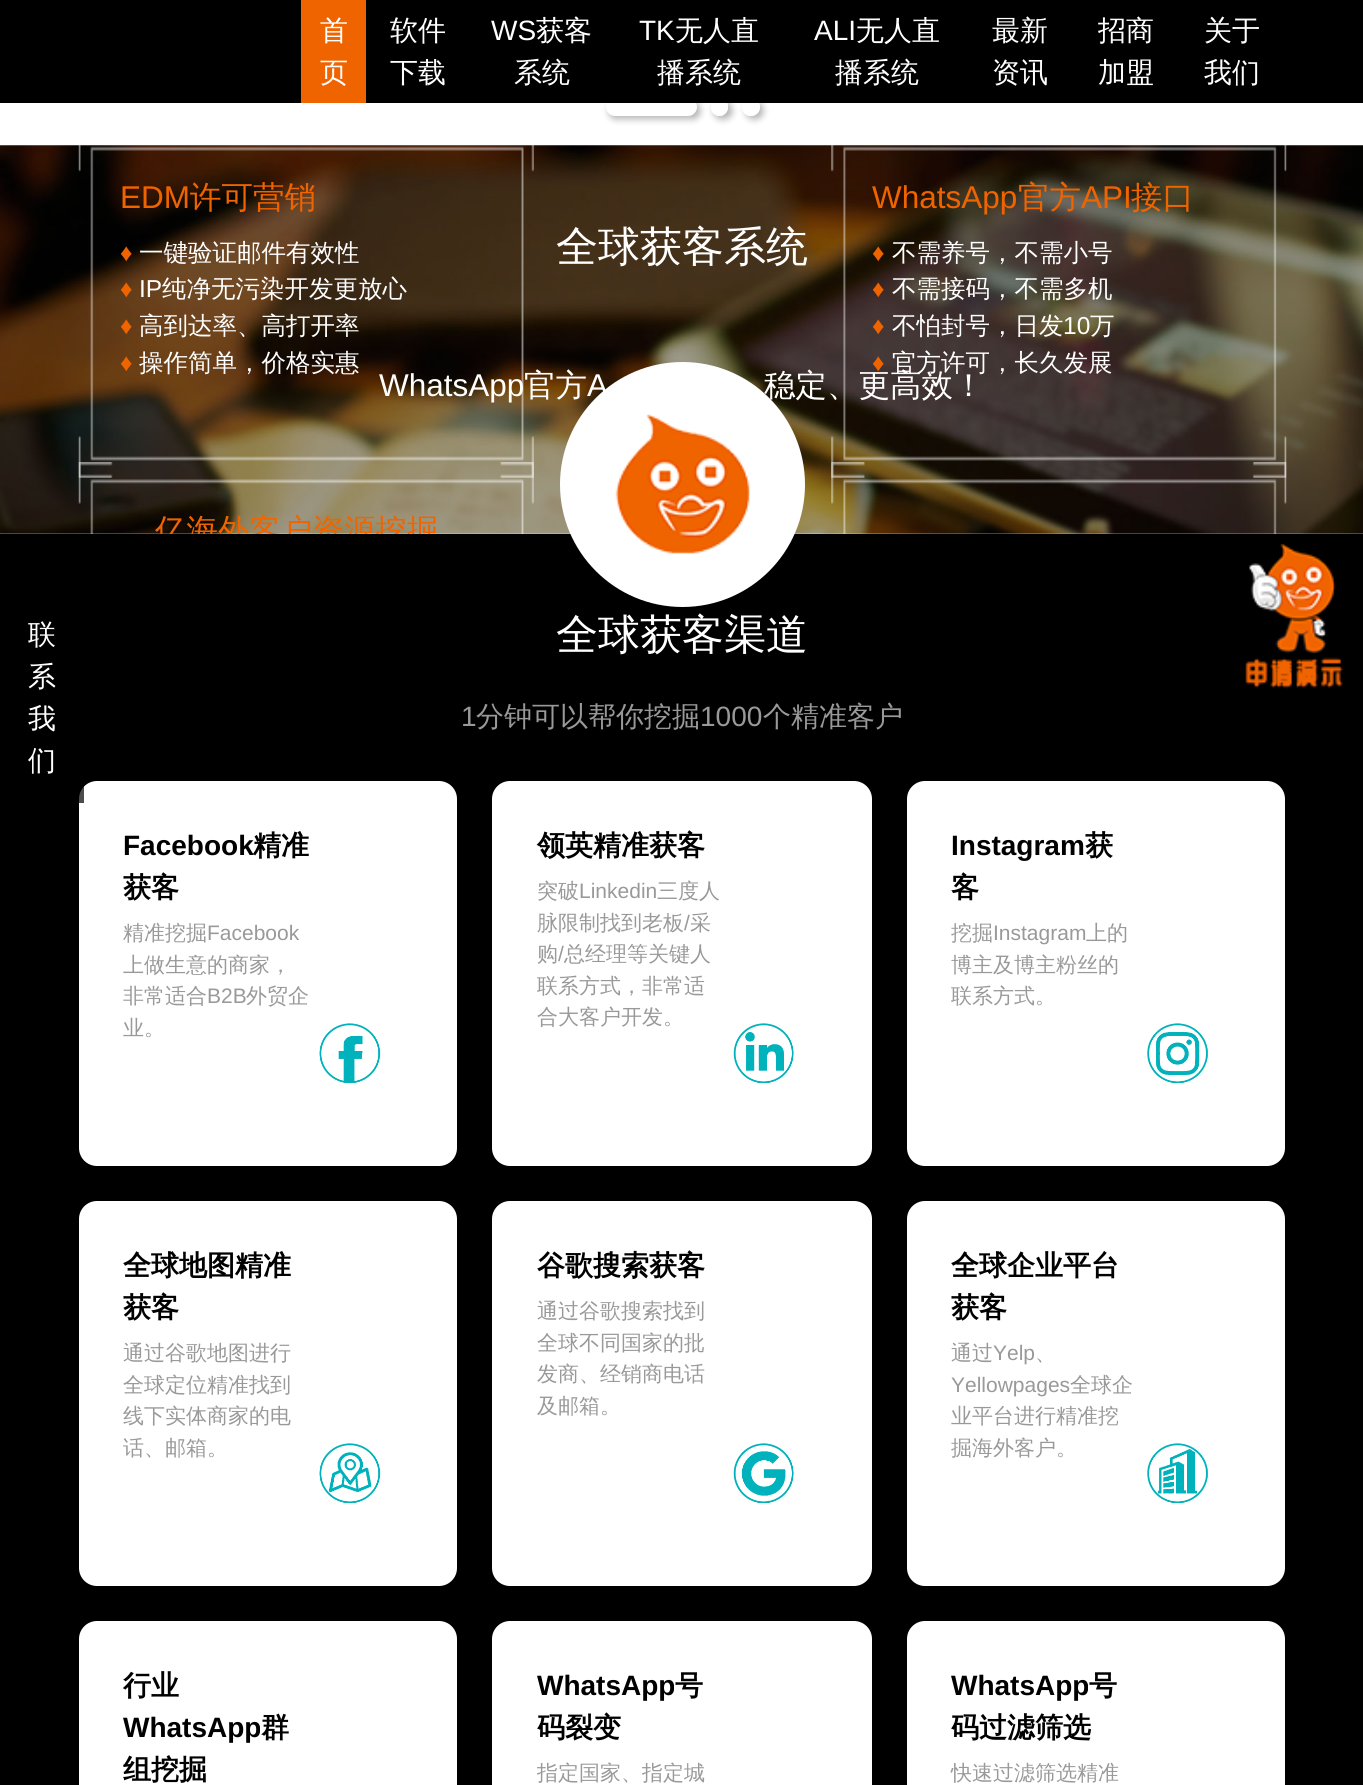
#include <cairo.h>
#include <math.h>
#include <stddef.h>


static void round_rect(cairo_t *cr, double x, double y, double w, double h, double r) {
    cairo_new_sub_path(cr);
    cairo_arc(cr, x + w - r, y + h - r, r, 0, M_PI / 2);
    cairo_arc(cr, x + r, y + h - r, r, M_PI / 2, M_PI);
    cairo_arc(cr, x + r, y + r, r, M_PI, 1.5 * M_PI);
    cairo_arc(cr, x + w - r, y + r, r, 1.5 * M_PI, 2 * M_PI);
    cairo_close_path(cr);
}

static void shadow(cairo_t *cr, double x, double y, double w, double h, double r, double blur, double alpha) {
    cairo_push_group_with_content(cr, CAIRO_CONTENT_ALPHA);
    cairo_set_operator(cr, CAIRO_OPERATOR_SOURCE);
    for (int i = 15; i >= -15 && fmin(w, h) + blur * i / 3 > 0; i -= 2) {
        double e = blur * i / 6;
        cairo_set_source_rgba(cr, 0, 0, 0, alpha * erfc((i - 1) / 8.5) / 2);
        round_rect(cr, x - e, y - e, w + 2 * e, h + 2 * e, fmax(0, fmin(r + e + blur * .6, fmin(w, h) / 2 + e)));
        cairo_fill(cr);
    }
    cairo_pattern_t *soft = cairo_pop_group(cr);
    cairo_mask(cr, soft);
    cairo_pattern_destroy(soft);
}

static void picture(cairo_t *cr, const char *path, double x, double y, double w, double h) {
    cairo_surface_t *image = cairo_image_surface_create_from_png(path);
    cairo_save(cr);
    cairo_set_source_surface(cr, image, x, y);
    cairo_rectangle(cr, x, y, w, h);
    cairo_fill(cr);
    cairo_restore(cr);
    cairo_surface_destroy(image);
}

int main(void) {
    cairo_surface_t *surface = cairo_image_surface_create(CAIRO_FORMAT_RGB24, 1363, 1785);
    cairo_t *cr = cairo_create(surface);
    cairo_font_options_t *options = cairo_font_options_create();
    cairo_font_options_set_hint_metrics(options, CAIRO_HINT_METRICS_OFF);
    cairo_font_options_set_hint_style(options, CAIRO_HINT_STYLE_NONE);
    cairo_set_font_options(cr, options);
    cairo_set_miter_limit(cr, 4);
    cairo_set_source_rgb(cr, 1, 1, 1);
    cairo_paint(cr);
    cairo_set_source_rgb(cr, 0, 0, 0);
    shadow(cr, 609, 102, 91, 17, 8.5, 3.5, 0.3);
    cairo_set_source_rgb(cr, 1, 1, 1);
    round_rect(cr, 606, 98, 91, 18, 9);
    cairo_fill(cr);
    cairo_save(cr);
    cairo_set_fill_rule(cr, CAIRO_FILL_RULE_EVEN_ODD);
    cairo_new_path(cr);
    cairo_move_to(cr, 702, 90);
    cairo_line_to(cr, 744, 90);
    cairo_line_to(cr, 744, 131);
    cairo_line_to(cr, 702, 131);
    cairo_close_path(cr);
    cairo_move_to(cr, 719.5, 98);
    cairo_curve_to(cr, 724, 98, 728, 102, 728, 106.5);
    cairo_line_to(cr, 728, 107.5);
    cairo_curve_to(cr, 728, 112, 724, 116, 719.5, 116);
    cairo_curve_to(cr, 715, 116, 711, 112, 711, 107.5);
    cairo_line_to(cr, 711, 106.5);
    cairo_curve_to(cr, 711, 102, 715, 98, 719.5, 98);
    cairo_close_path(cr);
    cairo_clip(cr);
    cairo_set_source_rgb(cr, 0, 0, 0);
    shadow(cr, 714, 102, 18, 17, 8.5, 3.5, 0.3);
    cairo_restore(cr);
    cairo_set_source_rgba(cr, 1, 1, 1, 0.6);
    round_rect(cr, 711, 98, 17, 18, 8.5);
    cairo_fill(cr);
    cairo_save(cr);
    cairo_set_fill_rule(cr, CAIRO_FILL_RULE_EVEN_ODD);
    cairo_new_path(cr);
    cairo_move_to(cr, 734, 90);
    cairo_line_to(cr, 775, 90);
    cairo_line_to(cr, 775, 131);
    cairo_line_to(cr, 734, 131);
    cairo_close_path(cr);
    cairo_move_to(cr, 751, 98);
    cairo_curve_to(cr, 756, 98, 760, 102, 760, 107);
    cairo_curve_to(cr, 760, 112, 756, 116, 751, 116);
    cairo_curve_to(cr, 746, 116, 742, 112, 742, 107);
    cairo_curve_to(cr, 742, 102, 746, 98, 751, 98);
    cairo_close_path(cr);
    cairo_clip(cr);
    cairo_set_source_rgb(cr, 0, 0, 0);
    shadow(cr, 746, 102, 17, 17, 8.5, 3.5, 0.3);
    cairo_restore(cr);
    cairo_arc(cr, 751, 107, 9, 0, 2 * M_PI);
    cairo_fill(cr);
    cairo_set_source_rgb(cr, 0, 0, 0);
    cairo_rectangle(cr, 0, 0, 1363, 103);
    cairo_fill(cr);
    cairo_set_source_rgb(cr, 0.941, 0.392, 0);
    cairo_rectangle(cr, 301, 0, 65, 103);
    cairo_fill(cr);
    cairo_select_font_face(cr, "WenQuanYi Zen Hei Medium", CAIRO_FONT_SLANT_NORMAL, CAIRO_FONT_WEIGHT_NORMAL);
    cairo_set_font_size(cr, 28);
    cairo_set_source_rgb(cr, 1, 1, 1);
    cairo_move_to(cr, 320, 40);
    cairo_show_text(cr, "首");
    cairo_move_to(cr, 320, 82);
    cairo_show_text(cr, "页");
    cairo_move_to(cr, 390, 40);
    cairo_show_text(cr, "软件");
    cairo_move_to(cr, 390, 82);
    cairo_show_text(cr, "下载");
    cairo_select_font_face(cr, "Liberation Sans", CAIRO_FONT_SLANT_NORMAL, CAIRO_FONT_WEIGHT_NORMAL);
    cairo_move_to(cr, 491, 40);
    cairo_show_text(cr, "WS");
    cairo_select_font_face(cr, "WenQuanYi Zen Hei Medium", CAIRO_FONT_SLANT_NORMAL, CAIRO_FONT_WEIGHT_NORMAL);
    cairo_move_to(cr, 536, 40);
    cairo_show_text(cr, "获客");
    cairo_move_to(cr, 514, 82);
    cairo_show_text(cr, "系统");
    cairo_select_font_face(cr, "Liberation Sans", CAIRO_FONT_SLANT_NORMAL, CAIRO_FONT_WEIGHT_NORMAL);
    cairo_move_to(cr, 639, 40);
    cairo_show_text(cr, "TK");
    cairo_select_font_face(cr, "WenQuanYi Zen Hei Medium", CAIRO_FONT_SLANT_NORMAL, CAIRO_FONT_WEIGHT_NORMAL);
    cairo_move_to(cr, 675, 40);
    cairo_show_text(cr, "无人直");
    cairo_move_to(cr, 657, 82);
    cairo_show_text(cr, "播系统");
    cairo_select_font_face(cr, "Liberation Sans", CAIRO_FONT_SLANT_NORMAL, CAIRO_FONT_WEIGHT_NORMAL);
    cairo_move_to(cr, 814, 40);
    cairo_show_text(cr, "ALI");
    cairo_select_font_face(cr, "WenQuanYi Zen Hei Medium", CAIRO_FONT_SLANT_NORMAL, CAIRO_FONT_WEIGHT_NORMAL);
    cairo_move_to(cr, 856, 40);
    cairo_show_text(cr, "无人直");
    cairo_move_to(cr, 835, 82);
    cairo_show_text(cr, "播系统");
    cairo_move_to(cr, 992, 40);
    cairo_show_text(cr, "最新");
    cairo_move_to(cr, 992, 82);
    cairo_show_text(cr, "资讯");
    cairo_move_to(cr, 1098, 40);
    cairo_show_text(cr, "招商");
    cairo_move_to(cr, 1098, 82);
    cairo_show_text(cr, "加盟");
    cairo_move_to(cr, 1204, 40);
    cairo_show_text(cr, "关于");
    cairo_move_to(cr, 1204, 82);
    cairo_show_text(cr, "我们");
    picture(cr, "img2.png", 0, 145, 1363, 389);
    picture(cr, "img5.png", 78, 462, 456, 72);
    cairo_set_font_size(cr, 31.5);
    cairo_set_source_rgb(cr, 0.941, 0.392, 0);
    cairo_move_to(cr, 155, 541);
    cairo_show_text(cr, "亿海外客户资源挖掘");
    cairo_set_source_rgb(cr, 0, 0, 0);
    cairo_rectangle(cr, 0, 534, 1363, 1251);
    cairo_fill(cr);
    picture(cr, "img1.png", 1245, 543, 98, 146);
    cairo_set_source_rgb(cr, 1, 1, 1);
    round_rect(cr, 79, 781, 378, 385, 18);
    cairo_fill(cr);
    cairo_set_source_rgba(cr, 0, 0, 0, 0.7);
    cairo_rectangle(cr, 79, 786, 5, 17);
    cairo_fill(cr);
    cairo_set_font_size(cr, 28);
    cairo_set_source_rgb(cr, 1, 1, 1);
    cairo_move_to(cr, 28, 644);
    cairo_show_text(cr, "联");
    cairo_move_to(cr, 28, 686);
    cairo_show_text(cr, "系");
    cairo_move_to(cr, 28, 728);
    cairo_show_text(cr, "我");
    cairo_move_to(cr, 28, 770);
    cairo_show_text(cr, "们");
    cairo_select_font_face(cr, "Liberation Sans", CAIRO_FONT_SLANT_NORMAL, CAIRO_FONT_WEIGHT_NORMAL);
    cairo_set_font_size(cr, 31.5);
    cairo_move_to(cr, 379, 396);
    cairo_show_text(cr, "WhatsApp");
    cairo_select_font_face(cr, "WenQuanYi Zen Hei Medium", CAIRO_FONT_SLANT_NORMAL, CAIRO_FONT_WEIGHT_NORMAL);
    cairo_move_to(cr, 524, 396);
    cairo_show_text(cr, "官方");
    picture(cr, "img3.png", 78, 145, 456, 333);
    cairo_select_font_face(cr, "Liberation Sans", CAIRO_FONT_SLANT_NORMAL, CAIRO_FONT_WEIGHT_NORMAL);
    cairo_set_source_rgb(cr, 0.941, 0.392, 0);
    cairo_move_to(cr, 120, 208);
    cairo_show_text(cr, "EDM");
    cairo_select_font_face(cr, "WenQuanYi Zen Hei Medium", CAIRO_FONT_SLANT_NORMAL, CAIRO_FONT_WEIGHT_NORMAL);
    cairo_move_to(cr, 190, 208);
    cairo_show_text(cr, "许可营销");
    cairo_select_font_face(cr, "Liberation Sans", CAIRO_FONT_SLANT_NORMAL, CAIRO_FONT_WEIGHT_NORMAL);
    cairo_set_font_size(cr, 24.5);
    cairo_move_to(cr, 120, 261);
    cairo_show_text(cr, "♦");
    cairo_select_font_face(cr, "WenQuanYi Zen Hei Medium", CAIRO_FONT_SLANT_NORMAL, CAIRO_FONT_WEIGHT_NORMAL);
    cairo_set_source_rgb(cr, 1, 1, 1);
    cairo_move_to(cr, 139, 261);
    cairo_show_text(cr, "一键验证邮件有效性");
    cairo_select_font_face(cr, "Liberation Sans", CAIRO_FONT_SLANT_NORMAL, CAIRO_FONT_WEIGHT_NORMAL);
    cairo_set_source_rgb(cr, 0.941, 0.392, 0);
    cairo_move_to(cr, 120, 297);
    cairo_show_text(cr, "♦");
    cairo_set_source_rgb(cr, 1, 1, 1);
    cairo_move_to(cr, 139, 297);
    cairo_show_text(cr, "IP");
    cairo_select_font_face(cr, "WenQuanYi Zen Hei Medium", CAIRO_FONT_SLANT_NORMAL, CAIRO_FONT_WEIGHT_NORMAL);
    cairo_move_to(cr, 162, 297);
    cairo_show_text(cr, "纯净无污染开发更放心");
    cairo_select_font_face(cr, "Liberation Sans", CAIRO_FONT_SLANT_NORMAL, CAIRO_FONT_WEIGHT_NORMAL);
    cairo_set_source_rgb(cr, 0.941, 0.392, 0);
    cairo_move_to(cr, 120, 334);
    cairo_show_text(cr, "♦");
    cairo_select_font_face(cr, "WenQuanYi Zen Hei Medium", CAIRO_FONT_SLANT_NORMAL, CAIRO_FONT_WEIGHT_NORMAL);
    cairo_set_source_rgb(cr, 1, 1, 1);
    cairo_move_to(cr, 139, 334);
    cairo_show_text(cr, "高到达率、高打开率");
    cairo_select_font_face(cr, "Liberation Sans", CAIRO_FONT_SLANT_NORMAL, CAIRO_FONT_WEIGHT_NORMAL);
    cairo_set_source_rgb(cr, 0.941, 0.392, 0);
    cairo_move_to(cr, 120, 371);
    cairo_show_text(cr, "♦");
    cairo_select_font_face(cr, "WenQuanYi Zen Hei Medium", CAIRO_FONT_SLANT_NORMAL, CAIRO_FONT_WEIGHT_NORMAL);
    cairo_set_source_rgb(cr, 1, 1, 1);
    cairo_move_to(cr, 139, 371);
    cairo_show_text(cr, "操作简单，价格实惠");
    picture(cr, "img6.png", 831, 462, 456, 72);
    cairo_set_font_size(cr, 31.5);
    cairo_move_to(cr, 764, 396);
    cairo_show_text(cr, "稳定、更高效！");
    picture(cr, "img4.png", 831, 145, 456, 333);
    cairo_select_font_face(cr, "Liberation Sans", CAIRO_FONT_SLANT_NORMAL, CAIRO_FONT_WEIGHT_NORMAL);
    cairo_set_source_rgb(cr, 0.941, 0.392, 0);
    cairo_move_to(cr, 872, 208);
    cairo_show_text(cr, "WhatsApp");
    cairo_select_font_face(cr, "WenQuanYi Zen Hei Medium", CAIRO_FONT_SLANT_NORMAL, CAIRO_FONT_WEIGHT_NORMAL);
    cairo_move_to(cr, 1018, 208);
    cairo_show_text(cr, "官方");
    cairo_select_font_face(cr, "Liberation Sans", CAIRO_FONT_SLANT_NORMAL, CAIRO_FONT_WEIGHT_NORMAL);
    cairo_move_to(cr, 1081, 208);
    cairo_show_text(cr, "API");
    cairo_select_font_face(cr, "WenQuanYi Zen Hei Medium", CAIRO_FONT_SLANT_NORMAL, CAIRO_FONT_WEIGHT_NORMAL);
    cairo_move_to(cr, 1131, 208);
    cairo_show_text(cr, "接口");
    cairo_select_font_face(cr, "Liberation Sans", CAIRO_FONT_SLANT_NORMAL, CAIRO_FONT_WEIGHT_NORMAL);
    cairo_set_font_size(cr, 24.5);
    cairo_move_to(cr, 872, 261);
    cairo_show_text(cr, "♦");
    cairo_select_font_face(cr, "WenQuanYi Zen Hei Medium", CAIRO_FONT_SLANT_NORMAL, CAIRO_FONT_WEIGHT_NORMAL);
    cairo_set_source_rgb(cr, 1, 1, 1);
    cairo_move_to(cr, 892, 261);
    cairo_show_text(cr, "不需养号，不需小号");
    cairo_select_font_face(cr, "Liberation Sans", CAIRO_FONT_SLANT_NORMAL, CAIRO_FONT_WEIGHT_NORMAL);
    cairo_set_source_rgb(cr, 0.941, 0.392, 0);
    cairo_move_to(cr, 872, 297);
    cairo_show_text(cr, "♦");
    cairo_select_font_face(cr, "WenQuanYi Zen Hei Medium", CAIRO_FONT_SLANT_NORMAL, CAIRO_FONT_WEIGHT_NORMAL);
    cairo_set_source_rgb(cr, 1, 1, 1);
    cairo_move_to(cr, 892, 297);
    cairo_show_text(cr, "不需接码，不需多机");
    cairo_select_font_face(cr, "Liberation Sans", CAIRO_FONT_SLANT_NORMAL, CAIRO_FONT_WEIGHT_NORMAL);
    cairo_set_source_rgb(cr, 0.941, 0.392, 0);
    cairo_move_to(cr, 872, 334);
    cairo_show_text(cr, "♦");
    cairo_select_font_face(cr, "WenQuanYi Zen Hei Medium", CAIRO_FONT_SLANT_NORMAL, CAIRO_FONT_WEIGHT_NORMAL);
    cairo_set_source_rgb(cr, 1, 1, 1);
    cairo_move_to(cr, 892, 334);
    cairo_show_text(cr, "不怕封号，日发");
    cairo_select_font_face(cr, "Liberation Sans", CAIRO_FONT_SLANT_NORMAL, CAIRO_FONT_WEIGHT_NORMAL);
    cairo_move_to(cr, 1063, 334);
    cairo_show_text(cr, "10");
    cairo_select_font_face(cr, "WenQuanYi Zen Hei Medium", CAIRO_FONT_SLANT_NORMAL, CAIRO_FONT_WEIGHT_NORMAL);
    cairo_move_to(cr, 1090, 334);
    cairo_show_text(cr, "万");
    cairo_select_font_face(cr, "Liberation Sans", CAIRO_FONT_SLANT_NORMAL, CAIRO_FONT_WEIGHT_NORMAL);
    cairo_set_source_rgb(cr, 0.941, 0.392, 0);
    cairo_move_to(cr, 872, 371);
    cairo_show_text(cr, "♦");
    cairo_select_font_face(cr, "WenQuanYi Zen Hei Medium", CAIRO_FONT_SLANT_NORMAL, CAIRO_FONT_WEIGHT_NORMAL);
    cairo_set_source_rgb(cr, 1, 1, 1);
    cairo_move_to(cr, 892, 371);
    cairo_show_text(cr, "官方许可，长久发展");
    cairo_new_path(cr);
    cairo_arc(cr, 682.5, 484.5, 122.5, 0, 2 * M_PI);
    cairo_fill(cr);
    picture(cr, "img7.png", 615, 414, 135, 140);
    cairo_set_font_size(cr, 42);
    cairo_move_to(cr, 556, 261);
    cairo_show_text(cr, "全球获客系统");
    cairo_select_font_face(cr, "Liberation Sans", CAIRO_FONT_SLANT_NORMAL, CAIRO_FONT_WEIGHT_NORMAL);
    cairo_set_font_size(cr, 31.5);
    cairo_move_to(cr, 587, 396);
    cairo_show_text(cr, "A");
    cairo_select_font_face(cr, "WenQuanYi Zen Hei Medium", CAIRO_FONT_SLANT_NORMAL, CAIRO_FONT_WEIGHT_NORMAL);
    cairo_set_font_size(cr, 42);
    cairo_move_to(cr, 556, 649);
    cairo_show_text(cr, "全球获客渠道");
    cairo_select_font_face(cr, "Liberation Sans", CAIRO_FONT_SLANT_NORMAL, CAIRO_FONT_WEIGHT_NORMAL);
    cairo_set_font_size(cr, 28);
    cairo_set_source_rgb(cr, 0.6, 0.6, 0.6);
    cairo_move_to(cr, 461, 726);
    cairo_show_text(cr, "1");
    cairo_select_font_face(cr, "WenQuanYi Zen Hei Medium", CAIRO_FONT_SLANT_NORMAL, CAIRO_FONT_WEIGHT_NORMAL);
    cairo_move_to(cr, 476, 726);
    cairo_show_text(cr, "分钟可以帮你挖掘");
    cairo_select_font_face(cr, "Liberation Sans", CAIRO_FONT_SLANT_NORMAL, CAIRO_FONT_WEIGHT_NORMAL);
    cairo_move_to(cr, 700, 726);
    cairo_show_text(cr, "1000");
    cairo_select_font_face(cr, "WenQuanYi Zen Hei Medium", CAIRO_FONT_SLANT_NORMAL, CAIRO_FONT_WEIGHT_NORMAL);
    cairo_move_to(cr, 763, 726);
    cairo_show_text(cr, "个精准客户");
    cairo_select_font_face(cr, "Liberation Sans", CAIRO_FONT_SLANT_NORMAL, CAIRO_FONT_WEIGHT_BOLD);
    cairo_set_source_rgb(cr, 0, 0, 0);
    cairo_move_to(cr, 123, 855);
    cairo_show_text(cr, "Facebook");
    cairo_select_font_face(cr, "WenQuanYi Zen Hei", CAIRO_FONT_SLANT_NORMAL, CAIRO_FONT_WEIGHT_BOLD);
    cairo_move_to(cr, 253, 855);
    cairo_show_text(cr, "精准");
    cairo_move_to(cr, 123, 897);
    cairo_show_text(cr, "获客");
    cairo_select_font_face(cr, "WenQuanYi Zen Hei Medium", CAIRO_FONT_SLANT_NORMAL, CAIRO_FONT_WEIGHT_NORMAL);
    cairo_set_font_size(cr, 21);
    cairo_set_source_rgb(cr, 0.6, 0.6, 0.6);
    cairo_move_to(cr, 123, 940);
    cairo_show_text(cr, "精准挖掘");
    cairo_select_font_face(cr, "Liberation Sans", CAIRO_FONT_SLANT_NORMAL, CAIRO_FONT_WEIGHT_NORMAL);
    cairo_move_to(cr, 207, 940);
    cairo_show_text(cr, "Facebook");
    cairo_select_font_face(cr, "WenQuanYi Zen Hei Medium", CAIRO_FONT_SLANT_NORMAL, CAIRO_FONT_WEIGHT_NORMAL);
    cairo_move_to(cr, 123, 972);
    cairo_show_text(cr, "上做生意的商家，");
    cairo_move_to(cr, 123, 1003);
    cairo_show_text(cr, "非常适合");
    cairo_select_font_face(cr, "Liberation Sans", CAIRO_FONT_SLANT_NORMAL, CAIRO_FONT_WEIGHT_NORMAL);
    cairo_move_to(cr, 207, 1003);
    cairo_show_text(cr, "B2B");
    cairo_select_font_face(cr, "WenQuanYi Zen Hei Medium", CAIRO_FONT_SLANT_NORMAL, CAIRO_FONT_WEIGHT_NORMAL);
    cairo_move_to(cr, 246, 1003);
    cairo_show_text(cr, "外贸企");
    cairo_move_to(cr, 123, 1035);
    cairo_show_text(cr, "业。");
    picture(cr, "img8.png", 319, 1023, 62, 60);
    cairo_set_source_rgb(cr, 1, 1, 1);
    round_rect(cr, 492, 781, 380, 385, 18);
    cairo_fill(cr);
    cairo_select_font_face(cr, "WenQuanYi Zen Hei", CAIRO_FONT_SLANT_NORMAL, CAIRO_FONT_WEIGHT_BOLD);
    cairo_set_font_size(cr, 28);
    cairo_set_source_rgb(cr, 0, 0, 0);
    cairo_move_to(cr, 537, 855);
    cairo_show_text(cr, "领英精准获客");
    cairo_select_font_face(cr, "WenQuanYi Zen Hei Medium", CAIRO_FONT_SLANT_NORMAL, CAIRO_FONT_WEIGHT_NORMAL);
    cairo_set_font_size(cr, 21);
    cairo_set_source_rgb(cr, 0.6, 0.6, 0.6);
    cairo_move_to(cr, 537, 898);
    cairo_show_text(cr, "突破");
    cairo_select_font_face(cr, "Liberation Sans", CAIRO_FONT_SLANT_NORMAL, CAIRO_FONT_WEIGHT_NORMAL);
    cairo_move_to(cr, 579, 898);
    cairo_show_text(cr, "Linkedin");
    cairo_select_font_face(cr, "WenQuanYi Zen Hei Medium", CAIRO_FONT_SLANT_NORMAL, CAIRO_FONT_WEIGHT_NORMAL);
    cairo_move_to(cr, 657, 898);
    cairo_show_text(cr, "三度人");
    cairo_move_to(cr, 537, 930);
    cairo_show_text(cr, "脉限制找到老板");
    cairo_select_font_face(cr, "Liberation Sans", CAIRO_FONT_SLANT_NORMAL, CAIRO_FONT_WEIGHT_NORMAL);
    cairo_move_to(cr, 684, 930);
    cairo_show_text(cr, "/");
    cairo_select_font_face(cr, "WenQuanYi Zen Hei Medium", CAIRO_FONT_SLANT_NORMAL, CAIRO_FONT_WEIGHT_NORMAL);
    cairo_move_to(cr, 690, 930);
    cairo_show_text(cr, "采");
    cairo_move_to(cr, 537, 961);
    cairo_show_text(cr, "购");
    cairo_select_font_face(cr, "Liberation Sans", CAIRO_FONT_SLANT_NORMAL, CAIRO_FONT_WEIGHT_NORMAL);
    cairo_move_to(cr, 558, 961);
    cairo_show_text(cr, "/");
    cairo_select_font_face(cr, "WenQuanYi Zen Hei Medium", CAIRO_FONT_SLANT_NORMAL, CAIRO_FONT_WEIGHT_NORMAL);
    cairo_move_to(cr, 564, 961);
    cairo_show_text(cr, "总经理等关键人");
    cairo_move_to(cr, 537, 993);
    cairo_show_text(cr, "联系方式，非常适");
    cairo_move_to(cr, 537, 1024);
    cairo_show_text(cr, "合大客户开发。");
    picture(cr, "img9.png", 733, 1023, 61, 60);
    cairo_set_source_rgb(cr, 1, 1, 1);
    round_rect(cr, 907, 781, 378, 385, 18);
    cairo_fill(cr);
    cairo_select_font_face(cr, "Liberation Sans", CAIRO_FONT_SLANT_NORMAL, CAIRO_FONT_WEIGHT_BOLD);
    cairo_set_font_size(cr, 28);
    cairo_set_source_rgb(cr, 0, 0, 0);
    cairo_move_to(cr, 951, 855);
    cairo_show_text(cr, "Instagram");
    cairo_select_font_face(cr, "WenQuanYi Zen Hei", CAIRO_FONT_SLANT_NORMAL, CAIRO_FONT_WEIGHT_BOLD);
    cairo_move_to(cr, 1085, 855);
    cairo_show_text(cr, "获");
    cairo_move_to(cr, 951, 897);
    cairo_show_text(cr, "客");
    cairo_select_font_face(cr, "WenQuanYi Zen Hei Medium", CAIRO_FONT_SLANT_NORMAL, CAIRO_FONT_WEIGHT_NORMAL);
    cairo_set_font_size(cr, 21);
    cairo_set_source_rgb(cr, 0.6, 0.6, 0.6);
    cairo_move_to(cr, 951, 940);
    cairo_show_text(cr, "挖掘");
    cairo_select_font_face(cr, "Liberation Sans", CAIRO_FONT_SLANT_NORMAL, CAIRO_FONT_WEIGHT_NORMAL);
    cairo_move_to(cr, 993, 940);
    cairo_show_text(cr, "Instagram");
    cairo_select_font_face(cr, "WenQuanYi Zen Hei Medium", CAIRO_FONT_SLANT_NORMAL, CAIRO_FONT_WEIGHT_NORMAL);
    cairo_move_to(cr, 1086, 940);
    cairo_show_text(cr, "上的");
    cairo_move_to(cr, 951, 972);
    cairo_show_text(cr, "博主及博主粉丝的");
    cairo_move_to(cr, 951, 1003);
    cairo_show_text(cr, "联系方式。");
    picture(cr, "img10.png", 1147, 1023, 61, 60);
    cairo_set_source_rgb(cr, 1, 1, 1);
    round_rect(cr, 79, 1201, 378, 385, 18);
    cairo_fill(cr);
    cairo_select_font_face(cr, "WenQuanYi Zen Hei", CAIRO_FONT_SLANT_NORMAL, CAIRO_FONT_WEIGHT_BOLD);
    cairo_set_font_size(cr, 28);
    cairo_set_source_rgb(cr, 0, 0, 0);
    cairo_move_to(cr, 123, 1275);
    cairo_show_text(cr, "全球地图精准");
    cairo_move_to(cr, 123, 1317);
    cairo_show_text(cr, "获客");
    cairo_select_font_face(cr, "WenQuanYi Zen Hei Medium", CAIRO_FONT_SLANT_NORMAL, CAIRO_FONT_WEIGHT_NORMAL);
    cairo_set_font_size(cr, 21);
    cairo_set_source_rgb(cr, 0.6, 0.6, 0.6);
    cairo_move_to(cr, 123, 1360);
    cairo_show_text(cr, "通过谷歌地图进行");
    cairo_move_to(cr, 123, 1392);
    cairo_show_text(cr, "全球定位精准找到");
    cairo_move_to(cr, 123, 1423);
    cairo_show_text(cr, "线下实体商家的电");
    cairo_move_to(cr, 123, 1455);
    cairo_show_text(cr, "话、邮箱。");
    picture(cr, "img11.png", 319, 1443, 62, 60);
    cairo_set_source_rgb(cr, 1, 1, 1);
    round_rect(cr, 492, 1201, 380, 385, 18);
    cairo_fill(cr);
    cairo_select_font_face(cr, "WenQuanYi Zen Hei", CAIRO_FONT_SLANT_NORMAL, CAIRO_FONT_WEIGHT_BOLD);
    cairo_set_font_size(cr, 28);
    cairo_set_source_rgb(cr, 0, 0, 0);
    cairo_move_to(cr, 537, 1275);
    cairo_show_text(cr, "谷歌搜索获客");
    cairo_select_font_face(cr, "WenQuanYi Zen Hei Medium", CAIRO_FONT_SLANT_NORMAL, CAIRO_FONT_WEIGHT_NORMAL);
    cairo_set_font_size(cr, 21);
    cairo_set_source_rgb(cr, 0.6, 0.6, 0.6);
    cairo_move_to(cr, 537, 1318);
    cairo_show_text(cr, "通过谷歌搜索找到");
    cairo_move_to(cr, 537, 1350);
    cairo_show_text(cr, "全球不同国家的批");
    cairo_move_to(cr, 537, 1381);
    cairo_show_text(cr, "发商、经销商电话");
    cairo_move_to(cr, 537, 1413);
    cairo_show_text(cr, "及邮箱。");
    picture(cr, "img12.png", 733, 1443, 61, 60);
    cairo_set_source_rgb(cr, 1, 1, 1);
    round_rect(cr, 907, 1201, 378, 385, 18);
    cairo_fill(cr);
    cairo_select_font_face(cr, "WenQuanYi Zen Hei", CAIRO_FONT_SLANT_NORMAL, CAIRO_FONT_WEIGHT_BOLD);
    cairo_set_font_size(cr, 28);
    cairo_set_source_rgb(cr, 0, 0, 0);
    cairo_move_to(cr, 951, 1275);
    cairo_show_text(cr, "全球企业平台");
    cairo_move_to(cr, 951, 1317);
    cairo_show_text(cr, "获客");
    cairo_select_font_face(cr, "WenQuanYi Zen Hei Medium", CAIRO_FONT_SLANT_NORMAL, CAIRO_FONT_WEIGHT_NORMAL);
    cairo_set_font_size(cr, 21);
    cairo_set_source_rgb(cr, 0.6, 0.6, 0.6);
    cairo_move_to(cr, 951, 1360);
    cairo_show_text(cr, "通过");
    cairo_select_font_face(cr, "Liberation Sans", CAIRO_FONT_SLANT_NORMAL, CAIRO_FONT_WEIGHT_NORMAL);
    cairo_move_to(cr, 993, 1360);
    cairo_show_text(cr, "Yelp");
    cairo_select_font_face(cr, "WenQuanYi Zen Hei Medium", CAIRO_FONT_SLANT_NORMAL, CAIRO_FONT_WEIGHT_NORMAL);
    cairo_move_to(cr, 1035, 1360);
    cairo_show_text(cr, "、");
    cairo_select_font_face(cr, "Liberation Sans", CAIRO_FONT_SLANT_NORMAL, CAIRO_FONT_WEIGHT_NORMAL);
    cairo_move_to(cr, 951, 1392);
    cairo_show_text(cr, "Yellowpages");
    cairo_select_font_face(cr, "WenQuanYi Zen Hei Medium", CAIRO_FONT_SLANT_NORMAL, CAIRO_FONT_WEIGHT_NORMAL);
    cairo_move_to(cr, 1070, 1392);
    cairo_show_text(cr, "全球企");
    cairo_move_to(cr, 951, 1423);
    cairo_show_text(cr, "业平台进行精准挖");
    cairo_move_to(cr, 951, 1455);
    cairo_show_text(cr, "掘海外客户。");
    picture(cr, "img13.png", 1147, 1443, 61, 60);
    cairo_set_source_rgb(cr, 1, 1, 1);
    round_rect(cr, 79, 1621, 378, 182, 18);
    cairo_fill(cr);
    cairo_select_font_face(cr, "WenQuanYi Zen Hei", CAIRO_FONT_SLANT_NORMAL, CAIRO_FONT_WEIGHT_BOLD);
    cairo_set_font_size(cr, 28);
    cairo_set_source_rgb(cr, 0, 0, 0);
    cairo_move_to(cr, 123, 1695);
    cairo_show_text(cr, "行业");
    cairo_select_font_face(cr, "Liberation Sans", CAIRO_FONT_SLANT_NORMAL, CAIRO_FONT_WEIGHT_BOLD);
    cairo_move_to(cr, 123, 1737);
    cairo_show_text(cr, "WhatsApp");
    cairo_select_font_face(cr, "WenQuanYi Zen Hei", CAIRO_FONT_SLANT_NORMAL, CAIRO_FONT_WEIGHT_BOLD);
    cairo_move_to(cr, 261, 1737);
    cairo_show_text(cr, "群");
    cairo_move_to(cr, 123, 1779);
    cairo_show_text(cr, "组挖掘");
    cairo_set_source_rgb(cr, 1, 1, 1);
    round_rect(cr, 492, 1621, 380, 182, 18);
    cairo_fill(cr);
    cairo_select_font_face(cr, "Liberation Sans", CAIRO_FONT_SLANT_NORMAL, CAIRO_FONT_WEIGHT_BOLD);
    cairo_set_source_rgb(cr, 0, 0, 0);
    cairo_move_to(cr, 537, 1695);
    cairo_show_text(cr, "WhatsApp");
    cairo_select_font_face(cr, "WenQuanYi Zen Hei", CAIRO_FONT_SLANT_NORMAL, CAIRO_FONT_WEIGHT_BOLD);
    cairo_move_to(cr, 675, 1695);
    cairo_show_text(cr, "号");
    cairo_move_to(cr, 537, 1737);
    cairo_show_text(cr, "码裂变");
    cairo_select_font_face(cr, "WenQuanYi Zen Hei Medium", CAIRO_FONT_SLANT_NORMAL, CAIRO_FONT_WEIGHT_NORMAL);
    cairo_set_font_size(cr, 21);
    cairo_set_source_rgb(cr, 0.6, 0.6, 0.6);
    cairo_move_to(cr, 537, 1780);
    cairo_show_text(cr, "指定国家、指定城");
    cairo_set_source_rgb(cr, 1, 1, 1);
    round_rect(cr, 907, 1621, 378, 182, 18);
    cairo_fill(cr);
    cairo_select_font_face(cr, "Liberation Sans", CAIRO_FONT_SLANT_NORMAL, CAIRO_FONT_WEIGHT_BOLD);
    cairo_set_font_size(cr, 28);
    cairo_set_source_rgb(cr, 0, 0, 0);
    cairo_move_to(cr, 951, 1695);
    cairo_show_text(cr, "WhatsApp");
    cairo_select_font_face(cr, "WenQuanYi Zen Hei", CAIRO_FONT_SLANT_NORMAL, CAIRO_FONT_WEIGHT_BOLD);
    cairo_move_to(cr, 1089, 1695);
    cairo_show_text(cr, "号");
    cairo_move_to(cr, 951, 1737);
    cairo_show_text(cr, "码过滤筛选");
    cairo_select_font_face(cr, "WenQuanYi Zen Hei Medium", CAIRO_FONT_SLANT_NORMAL, CAIRO_FONT_WEIGHT_NORMAL);
    cairo_set_font_size(cr, 21);
    cairo_set_source_rgb(cr, 0.6, 0.6, 0.6);
    cairo_move_to(cr, 951, 1780);
    cairo_show_text(cr, "快速过滤筛选精准");
    cairo_surface_write_to_png(surface, "page.png");
    cairo_font_options_destroy(options);
    cairo_destroy(cr);
    cairo_surface_destroy(surface);
    return 0;
}
